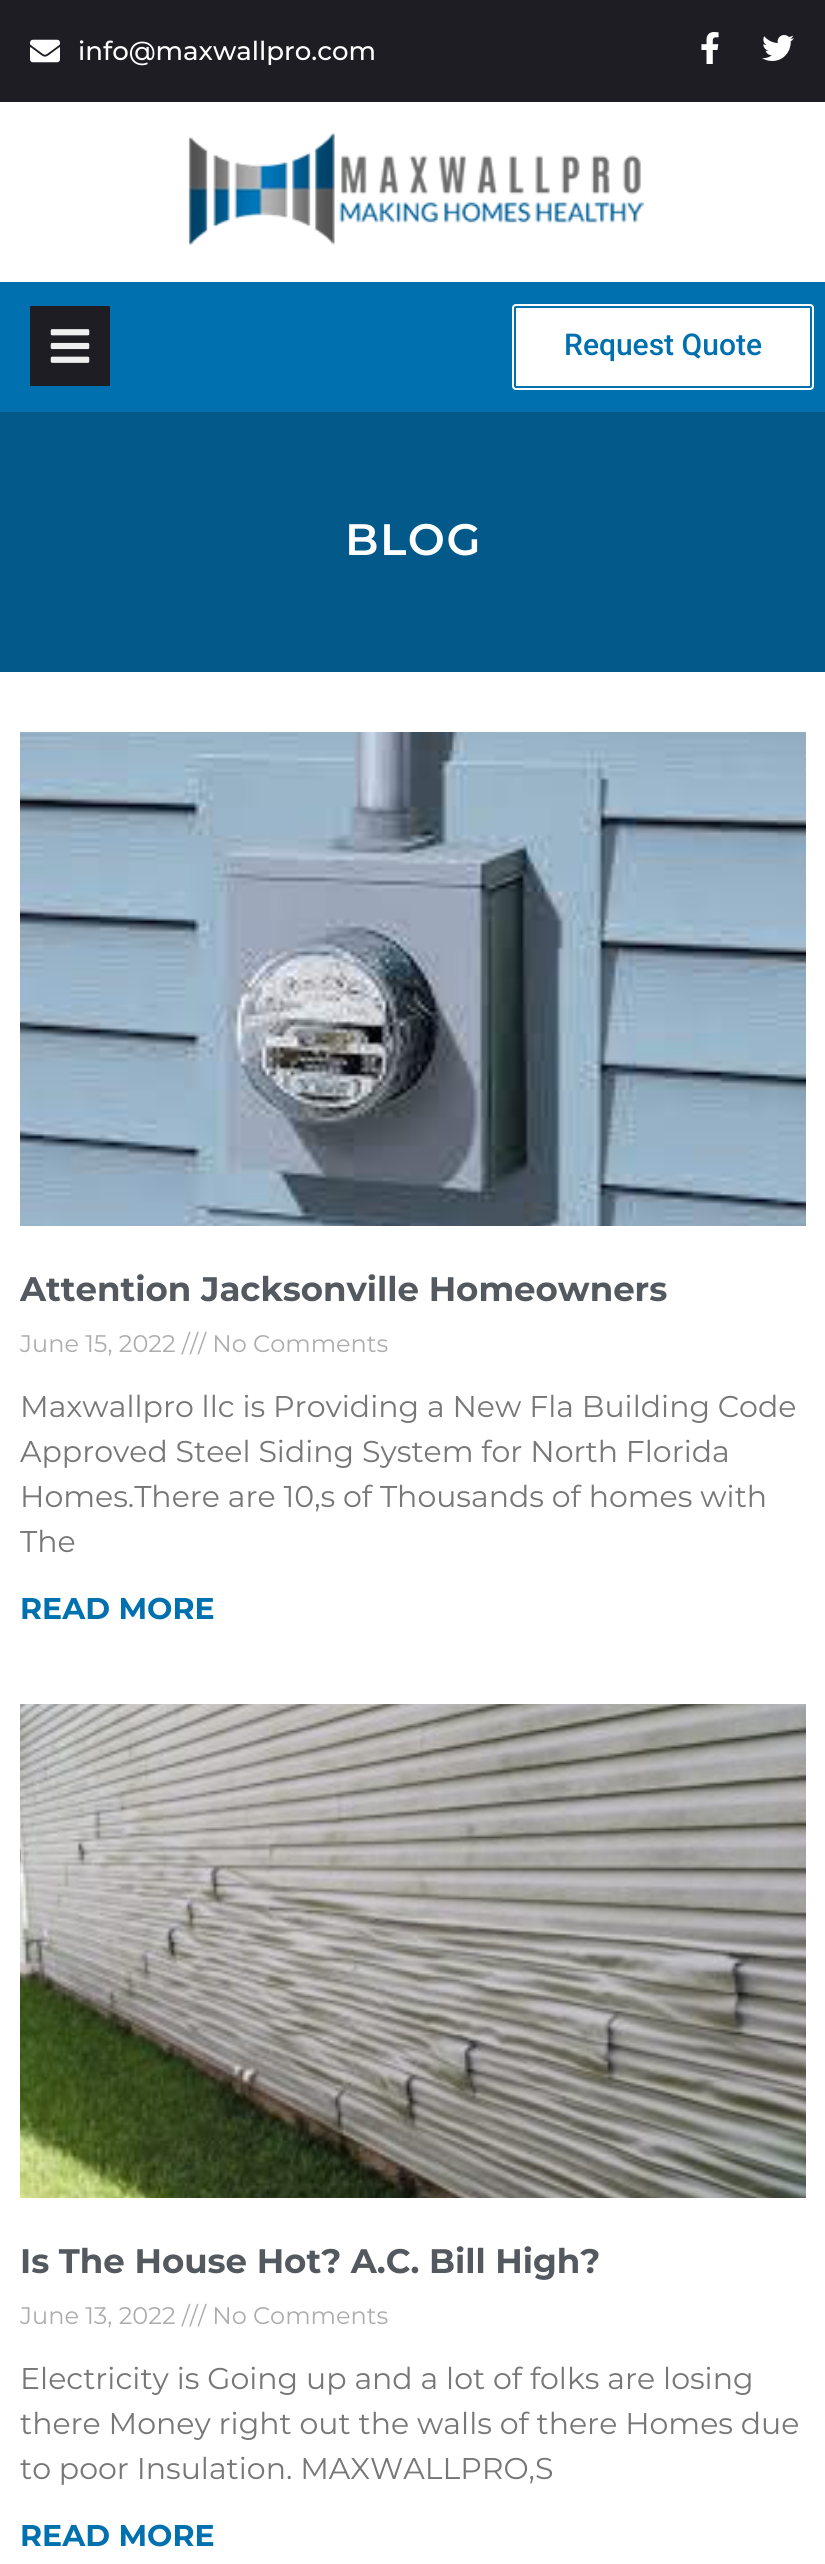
#include <cairo.h>
#include <math.h>
#include <stddef.h>


static void spaced_text(cairo_t *cr, double x, double y, const char *s, double letter, double word) {
    cairo_move_to(cr, x, y);
    while (*s) {
        char ch[5] = {0};
        int n = 0;
        do ch[n++] = *s++; while ((*s & 0xC0) == 0x80);
        cairo_show_text(cr, ch);
        cairo_rel_move_to(cr, letter + word * (*ch == ' '), 0);
    }
}

static void round_rect(cairo_t *cr, double x, double y, double w, double h, double r) {
    cairo_new_sub_path(cr);
    cairo_arc(cr, x + w - r, y + h - r, r, 0, M_PI / 2);
    cairo_arc(cr, x + r, y + h - r, r, M_PI / 2, M_PI);
    cairo_arc(cr, x + r, y + r, r, M_PI, 1.5 * M_PI);
    cairo_arc(cr, x + w - r, y + r, r, 1.5 * M_PI, 2 * M_PI);
    cairo_close_path(cr);
}

static void picture(cairo_t *cr, const char *path, double x, double y, double w, double h) {
    cairo_surface_t *image = cairo_image_surface_create_from_png(path);
    cairo_save(cr);
    cairo_set_source_surface(cr, image, x, y);
    cairo_rectangle(cr, x, y, w, h);
    cairo_fill(cr);
    cairo_restore(cr);
    cairo_surface_destroy(image);
}

int main(void) {
    cairo_surface_t *surface = cairo_image_surface_create(CAIRO_FORMAT_RGB24, 825, 2564);
    cairo_t *cr = cairo_create(surface);
    cairo_font_options_t *options = cairo_font_options_create();
    cairo_font_options_set_hint_metrics(options, CAIRO_HINT_METRICS_OFF);
    cairo_font_options_set_hint_style(options, CAIRO_HINT_STYLE_NONE);
    cairo_set_font_options(cr, options);
    cairo_set_miter_limit(cr, 4);
    cairo_set_source_rgb(cr, 1, 1, 1);
    cairo_paint(cr);
    cairo_set_source_rgb(cr, 0.118, 0.114, 0.141);
    cairo_rectangle(cr, 0, 0, 825, 102);
    cairo_fill(cr);
    picture(cr, "img1.png", 30, 39, 30, 24);
    cairo_select_font_face(cr, "Montserrat Medium", CAIRO_FONT_SLANT_NORMAL, CAIRO_FONT_WEIGHT_NORMAL);
    cairo_set_font_size(cr, 26);
    cairo_set_source_rgb(cr, 1, 1, 1);
    cairo_move_to(cr, 78, 60);
    cairo_show_text(cr, "info@maxwallpro.com");
    picture(cr, "img2.png", 701, 32, 18, 32);
    picture(cr, "img3.png", 762, 35, 32, 26);
    picture(cr, "img4.png", 188, 133, 456, 112);
    cairo_set_source_rgb(cr, 0, 0.439, 0.682);
    cairo_rectangle(cr, 0, 282, 825, 130);
    cairo_fill(cr);
    cairo_set_source_rgb(cr, 0.118, 0.114, 0.141);
    cairo_rectangle(cr, 30, 306, 80, 80);
    cairo_fill(cr);
    picture(cr, "img5.png", 50, 329, 40, 34);
    cairo_set_source_rgb(cr, 1, 1, 1);
    round_rect(cr, 511, 303, 304, 88, 5);
    cairo_fill_preserve(cr);
    cairo_set_source_rgb(cr, 0, 0.439, 0.682);
    cairo_stroke(cr);
    round_rect(cr, 515, 307, 296, 80, 1);
    cairo_stroke(cr);
    cairo_select_font_face(cr, "Roboto Medium", CAIRO_FONT_SLANT_NORMAL, CAIRO_FONT_WEIGHT_NORMAL);
    cairo_set_font_size(cr, 30);
    cairo_move_to(cr, 564, 355);
    cairo_show_text(cr, "Request Quote");
    cairo_set_source_rgb(cr, 0.008, 0.349, 0.541);
    cairo_rectangle(cr, 0, 412, 825, 260);
    cairo_fill(cr);
    cairo_select_font_face(cr, "Montserrat SemiBold", CAIRO_FONT_SLANT_NORMAL, CAIRO_FONT_WEIGHT_NORMAL);
    cairo_set_font_size(cr, 44);
    cairo_set_source_rgb(cr, 1, 1, 1);
    spaced_text(cr, 345, 555, "BLOG", 1.5, 0);
    picture(cr, "img6.png", 20, 732, 786, 494);
    cairo_select_font_face(cr, "Montserrat", CAIRO_FONT_SLANT_NORMAL, CAIRO_FONT_WEIGHT_BOLD);
    cairo_set_font_size(cr, 34);
    cairo_set_source_rgb(cr, 0.329, 0.349, 0.373);
    cairo_move_to(cr, 20, 1301);
    cairo_show_text(cr, "Attention Jacksonville Homeowners");
    cairo_select_font_face(cr, "Montserrat", CAIRO_FONT_SLANT_NORMAL, CAIRO_FONT_WEIGHT_NORMAL);
    cairo_set_font_size(cr, 24);
    cairo_set_source_rgb(cr, 0.678, 0.678, 0.678);
    cairo_move_to(cr, 20, 1352);
    cairo_show_text(cr, "June 15, 2022 /// No Comments");
    cairo_set_font_size(cr, 30);
    cairo_set_source_rgb(cr, 0.467, 0.467, 0.467);
    cairo_move_to(cr, 20, 1417);
    cairo_show_text(cr, "Maxwallpro llc is Providing a New Fla Building Code");
    cairo_move_to(cr, 20, 1462);
    cairo_show_text(cr, "Approved Steel Siding System for North Florida");
    cairo_move_to(cr, 20, 1507);
    cairo_show_text(cr, "Homes.There are 10,s of Thousands of homes with");
    cairo_move_to(cr, 20, 1552);
    cairo_show_text(cr, "The");
    cairo_select_font_face(cr, "Montserrat", CAIRO_FONT_SLANT_NORMAL, CAIRO_FONT_WEIGHT_BOLD);
    cairo_set_source_rgb(cr, 0, 0.439, 0.682);
    cairo_move_to(cr, 20, 1619);
    cairo_show_text(cr, "READ MORE");
    picture(cr, "img7.png", 20, 1704, 786, 494);
    cairo_set_font_size(cr, 34);
    cairo_set_source_rgb(cr, 0.329, 0.349, 0.373);
    cairo_move_to(cr, 20, 2273);
    cairo_show_text(cr, "Is The House Hot? A.C. Bill High?");
    cairo_select_font_face(cr, "Montserrat", CAIRO_FONT_SLANT_NORMAL, CAIRO_FONT_WEIGHT_NORMAL);
    cairo_set_font_size(cr, 24);
    cairo_set_source_rgb(cr, 0.678, 0.678, 0.678);
    cairo_move_to(cr, 20, 2324);
    cairo_show_text(cr, "June 13, 2022 /// No Comments");
    cairo_set_font_size(cr, 30);
    cairo_set_source_rgb(cr, 0.467, 0.467, 0.467);
    cairo_move_to(cr, 20, 2389);
    cairo_show_text(cr, "Electricity is Going up and a lot of folks are losing");
    cairo_move_to(cr, 20, 2434);
    cairo_show_text(cr, "there Money right out the walls of there Homes due");
    cairo_move_to(cr, 20, 2479);
    cairo_show_text(cr, "to poor Insulation. MAXWALLPRO,S");
    cairo_select_font_face(cr, "Montserrat", CAIRO_FONT_SLANT_NORMAL, CAIRO_FONT_WEIGHT_BOLD);
    cairo_set_source_rgb(cr, 0, 0.439, 0.682);
    cairo_move_to(cr, 20, 2546);
    cairo_show_text(cr, "READ MORE");
    cairo_surface_write_to_png(surface, "page.png");
    cairo_font_options_destroy(options);
    cairo_destroy(cr);
    cairo_surface_destroy(surface);
    return 0;
}
